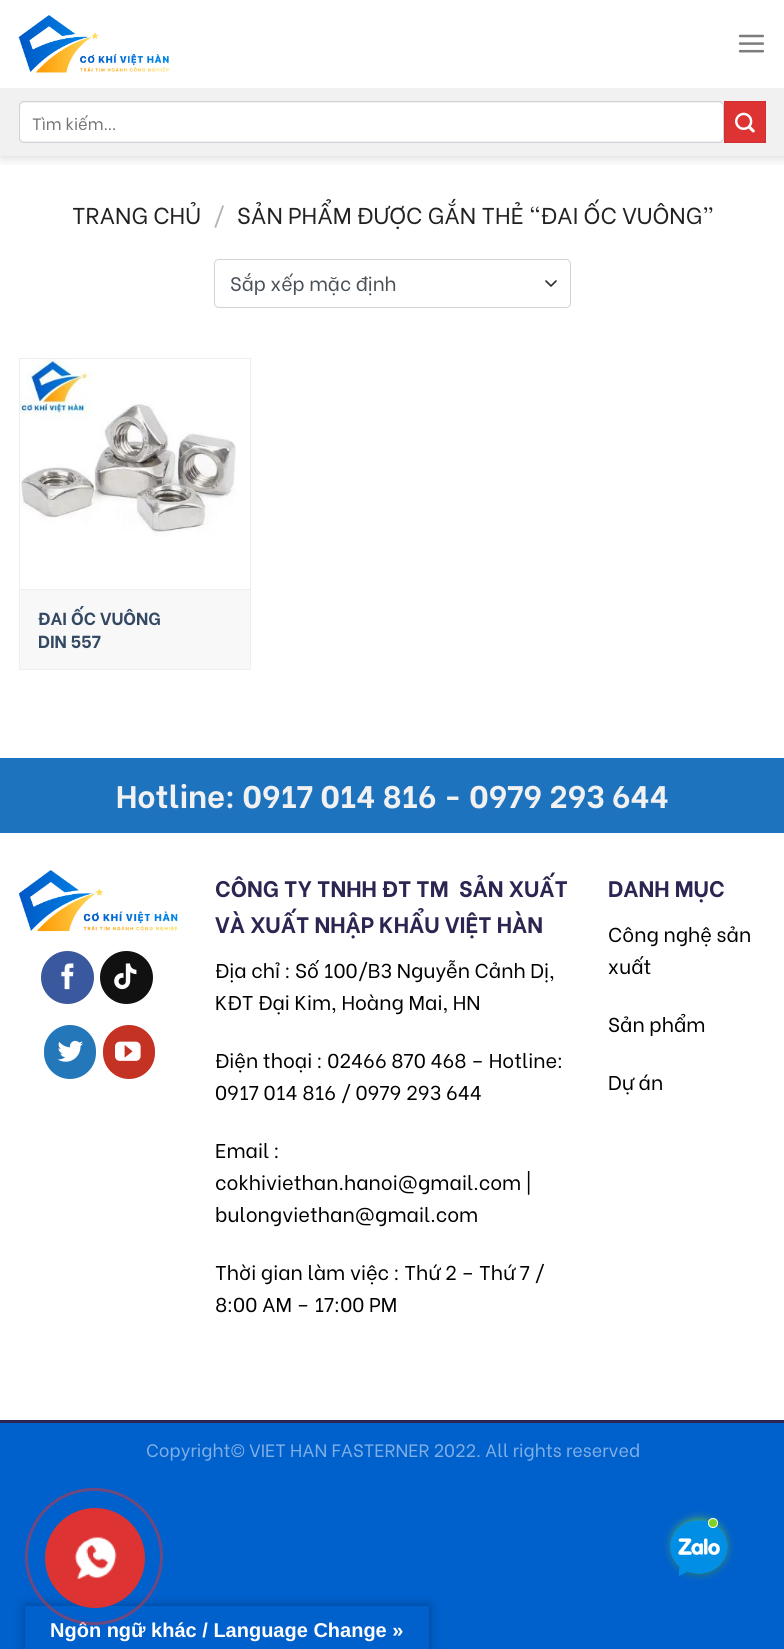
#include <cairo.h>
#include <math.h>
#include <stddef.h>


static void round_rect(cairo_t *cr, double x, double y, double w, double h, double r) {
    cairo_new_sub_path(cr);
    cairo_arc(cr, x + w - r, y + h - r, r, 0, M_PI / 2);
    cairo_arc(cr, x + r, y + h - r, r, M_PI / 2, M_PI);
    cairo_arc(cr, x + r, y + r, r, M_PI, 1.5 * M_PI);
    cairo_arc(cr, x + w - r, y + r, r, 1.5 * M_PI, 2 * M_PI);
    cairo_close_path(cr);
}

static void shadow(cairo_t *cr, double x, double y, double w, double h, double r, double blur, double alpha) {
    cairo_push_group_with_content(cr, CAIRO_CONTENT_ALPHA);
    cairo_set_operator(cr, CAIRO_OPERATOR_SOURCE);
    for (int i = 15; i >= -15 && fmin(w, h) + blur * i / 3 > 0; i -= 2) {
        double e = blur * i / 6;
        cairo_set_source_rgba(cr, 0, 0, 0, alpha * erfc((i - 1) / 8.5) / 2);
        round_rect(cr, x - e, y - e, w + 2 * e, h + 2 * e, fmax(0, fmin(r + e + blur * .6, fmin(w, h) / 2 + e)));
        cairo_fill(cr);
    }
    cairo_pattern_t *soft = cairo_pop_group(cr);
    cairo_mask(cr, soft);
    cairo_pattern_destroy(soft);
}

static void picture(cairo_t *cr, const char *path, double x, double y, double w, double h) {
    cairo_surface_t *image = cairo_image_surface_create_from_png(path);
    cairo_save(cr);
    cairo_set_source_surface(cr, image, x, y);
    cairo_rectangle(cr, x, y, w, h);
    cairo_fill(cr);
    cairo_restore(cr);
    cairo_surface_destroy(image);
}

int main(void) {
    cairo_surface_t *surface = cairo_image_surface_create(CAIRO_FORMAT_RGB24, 784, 1649);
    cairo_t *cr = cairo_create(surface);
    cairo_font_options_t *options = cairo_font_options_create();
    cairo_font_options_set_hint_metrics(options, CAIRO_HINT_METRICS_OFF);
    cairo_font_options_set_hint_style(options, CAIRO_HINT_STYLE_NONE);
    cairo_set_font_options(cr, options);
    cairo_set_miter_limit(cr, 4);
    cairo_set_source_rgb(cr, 0, 0.376, 0.8);
    cairo_paint(cr);
    cairo_set_source_rgb(cr, 1, 1, 1);
    cairo_rectangle(cr, 0, 0, 784, 1420);
    cairo_fill(cr);
    cairo_save(cr);
    cairo_rectangle(cr, 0, 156, 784, 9);
    cairo_clip(cr);
    cairo_set_source_rgb(cr, 0, 0, 0);
    shadow(cr, 1, 1, 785, 157, 0, 6, 0.15);
    cairo_restore(cr);
    picture(cr, "img1.png", 18, 15, 151, 58);
    picture(cr, "img2.png", 738, 34, 27, 19);
    cairo_set_source_rgb(cr, 0.945, 0.945, 0.945);
    cairo_rectangle(cr, 0, 88, 784, 68);
    cairo_fill(cr);
    cairo_set_source_rgb(cr, 1, 1, 1);
    round_rect(cr, 20, 103, 703, 38, 4);
    cairo_fill(cr);
    round_rect(cr, 19.5, 101.5, 704, 41, 4.5);
    cairo_set_source_rgb(cr, 0.808, 0.831, 0.855);
    cairo_set_line_width(cr, 1);
    cairo_stroke(cr);
    cairo_select_font_face(cr, "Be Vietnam", CAIRO_FONT_SLANT_NORMAL, CAIRO_FONT_WEIGHT_NORMAL);
    cairo_set_font_size(cr, 16.5);
    cairo_set_source_rgb(cr, 0.459, 0.459, 0.459);
    cairo_move_to(cr, 32, 130);
    cairo_show_text(cr, "Tìm kiếm…");
    cairo_set_source_rgb(cr, 0.867, 0.2, 0.2);
    cairo_rectangle(cr, 724.5, 101.5, 41, 41);
    cairo_fill_preserve(cr);
    cairo_set_source_rgb(cr, 0.824, 0.188, 0.188);
    cairo_stroke(cr);
    picture(cr, "img3.png", 735, 112, 20, 21);
    cairo_set_font_size(cr, 23);
    cairo_set_source_rgb(cr, 0.133, 0.133, 0.133);
    cairo_move_to(cr, 72, 224);
    cairo_show_text(cr, "TRANG CHỦ");
    cairo_set_source_rgb(cr, 0.698, 0.698, 0.698);
    cairo_move_to(cr, 213, 224);
    cairo_show_text(cr, "/");
    cairo_set_source_rgb(cr, 0.133, 0.133, 0.133);
    cairo_move_to(cr, 237, 224);
    cairo_show_text(cr, "SẢN PHẨM ĐƯỢC GẮN THẺ “ĐAI ỐC VUÔNG”");
    cairo_new_path(cr);
    cairo_move_to(cr, 546, 281);
    cairo_line_to(cr, 551, 286);
    cairo_line_to(cr, 556, 281);
    cairo_set_source_rgb(cr, 0.2, 0.2, 0.2);
    cairo_set_line_width(cr, 1.7);
    cairo_set_line_cap(cr, CAIRO_LINE_CAP_ROUND);
    cairo_set_line_join(cr, CAIRO_LINE_JOIN_ROUND);
    cairo_stroke(cr);
    round_rect(cr, 214.5, 259.5, 356, 48, 4.5);
    cairo_set_source_rgb(cr, 0.808, 0.831, 0.855);
    cairo_set_line_width(cr, 1);
    cairo_set_line_cap(cr, CAIRO_LINE_CAP_BUTT);
    cairo_set_line_join(cr, CAIRO_LINE_JOIN_MITER);
    cairo_stroke(cr);
    cairo_set_font_size(cr, 19.5);
    cairo_set_source_rgb(cr, 0.286, 0.314, 0.341);
    cairo_move_to(cr, 230, 291);
    cairo_show_text(cr, "Sắp xếp mặc định");
    cairo_rectangle(cr, 19.5, 358.5, 231, 311);
    cairo_set_source_rgb(cr, 0.933, 0.933, 0.933);
    cairo_stroke(cr);
    picture(cr, "img4.png", 20, 359, 216, 178);
    cairo_set_source_rgb(cr, 0.969, 0.969, 0.969);
    cairo_rectangle(cr, 20, 590, 230, 79);
    cairo_fill(cr);
    cairo_set_source_rgb(cr, 0.933, 0.933, 0.933);
    cairo_rectangle(cr, 20, 589, 230, 1);
    cairo_fill(cr);
    cairo_select_font_face(cr, "Be Vietnam", CAIRO_FONT_SLANT_NORMAL, CAIRO_FONT_WEIGHT_BOLD);
    cairo_set_font_size(cr, 17.5);
    cairo_set_source_rgb(cr, 0.2, 0.282, 0.384);
    cairo_move_to(cr, 38, 625);
    cairo_show_text(cr, "ĐAI ỐC VUÔNG");
    cairo_move_to(cr, 38, 648);
    cairo_show_text(cr, "DIN 557");
    cairo_set_source_rgb(cr, 0.118, 0.451, 0.745);
    cairo_rectangle(cr, 0, 758, 784, 75);
    cairo_fill(cr);
    cairo_set_font_size(cr, 31.25);
    cairo_set_source_rgb(cr, 0.945, 0.945, 0.945);
    cairo_move_to(cr, 116, 808);
    cairo_show_text(cr, "Hotline: 0917 014 816 - 0979 293 644");
    picture(cr, "img5.png", 18, 870, 160, 62);
    cairo_set_source_rgb(cr, 0.227, 0.345, 0.616);
    cairo_arc(cr, 67.5, 977.5, 26.5, 0, 2 * M_PI);
    cairo_fill(cr);
    picture(cr, "img6.png", 61, 963, 13, 27);
    cairo_set_source_rgb(cr, 0.067, 0.067, 0.067);
    cairo_arc(cr, 126.5, 977.5, 26.5, 0, 2 * M_PI);
    cairo_fill(cr);
    picture(cr, "img7.png", 114, 963, 23, 27);
    cairo_set_source_rgb(cr, 0.141, 0.471, 0.729);
    round_rect(cr, 44, 1025, 52, 54, 26);
    cairo_fill(cr);
    picture(cr, "img8.png", 57, 1040, 26, 22);
    cairo_set_source_rgb(cr, 0.765, 0.196, 0.137);
    round_rect(cr, 103, 1025, 52, 54, 26);
    cairo_fill(cr);
    picture(cr, "img9.png", 115, 1041, 26, 20);
    cairo_set_font_size(cr, 22.5);
    cairo_set_source_rgb(cr, 0.173, 0.145, 0.318);
    cairo_move_to(cr, 215, 897);
    cairo_show_text(cr, "CÔNG TY TNHH ĐT TM");
    cairo_move_to(cr, 459, 897);
    cairo_show_text(cr, "SẢN XUẤT");
    cairo_move_to(cr, 215, 933);
    cairo_show_text(cr, "VÀ XUẤT NHẬP KHẨU VIỆT HÀN");
    cairo_select_font_face(cr, "Be Vietnam", CAIRO_FONT_SLANT_NORMAL, CAIRO_FONT_WEIGHT_NORMAL);
    cairo_set_font_size(cr, 20);
    cairo_set_source_rgb(cr, 0, 0, 0);
    cairo_move_to(cr, 215, 978);
    cairo_show_text(cr, "Địa chỉ : Số 100/B3 Nguyễn Cảnh Dị,");
    cairo_move_to(cr, 215, 1010);
    cairo_show_text(cr, "KĐT Đại Kim, Hoàng Mai, HN");
    cairo_move_to(cr, 215, 1068);
    cairo_show_text(cr, "Điện thoại : 02466 870 468 – Hotline:");
    cairo_move_to(cr, 215, 1100);
    cairo_show_text(cr, "0917 014 816 / 0979 293 644");
    cairo_move_to(cr, 215, 1158);
    cairo_show_text(cr, "Email :");
    cairo_move_to(cr, 215, 1190);
    cairo_show_text(cr, "cokhiviethan.hanoi@gmail.com |");
    cairo_move_to(cr, 215, 1222);
    cairo_show_text(cr, "bulongviethan@gmail.com");
    cairo_move_to(cr, 215, 1280);
    cairo_show_text(cr, "Thời gian làm việc : Thứ 2 – Thứ 7 /");
    cairo_move_to(cr, 215, 1312);
    cairo_show_text(cr, "8:00 AM – 17:00 PM");
    cairo_select_font_face(cr, "Be Vietnam", CAIRO_FONT_SLANT_NORMAL, CAIRO_FONT_WEIGHT_BOLD);
    cairo_set_font_size(cr, 22.5);
    cairo_set_source_rgb(cr, 0.173, 0.145, 0.318);
    cairo_move_to(cr, 608, 897);
    cairo_show_text(cr, "DANH MỤC");
    cairo_select_font_face(cr, "Be Vietnam", CAIRO_FONT_SLANT_NORMAL, CAIRO_FONT_WEIGHT_NORMAL);
    cairo_set_font_size(cr, 20);
    cairo_set_source_rgb(cr, 0, 0, 0);
    cairo_move_to(cr, 608, 942);
    cairo_show_text(cr, "Công nghệ sản");
    cairo_move_to(cr, 608, 974);
    cairo_show_text(cr, "xuất");
    cairo_move_to(cr, 608, 1032);
    cairo_show_text(cr, "Sản phẩm");
    cairo_move_to(cr, 608, 1090);
    cairo_show_text(cr, "Dự án");
    cairo_set_source_rgb(cr, 0.173, 0.145, 0.318);
    cairo_rectangle(cr, 0, 1420, 784, 3);
    cairo_fill(cr);
    cairo_set_font_size(cr, 18);
    cairo_set_source_rgb(cr, 0.502, 0.69, 0.902);
    cairo_move_to(cr, 146, 1457);
    cairo_show_text(cr, "Copyright© VIET HAN FASTERNER 2022. All rights reserved");
    cairo_set_source_rgb(cr, 0, 0, 0);
    shadow(cr, 25, 1606, 404, 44, 0, 5.5, 0.3);
    cairo_set_source_rgb(cr, 0, 0.376, 0.8);
    cairo_rectangle(cr, 25, 1606, 404, 43);
    cairo_fill(cr);
    cairo_select_font_face(cr, "Liberation Sans", CAIRO_FONT_SLANT_NORMAL, CAIRO_FONT_WEIGHT_BOLD);
    cairo_set_font_size(cr, 20);
    cairo_set_source_rgb(cr, 1, 1, 1);
    cairo_move_to(cr, 50, 1637);
    cairo_show_text(cr, "Ngôn ngữ khác / Language Change »");
    round_rect(cr, 26.5, 1489.5, 135, 134, 67);
    cairo_set_source_rgba(cr, 0.867, 0.2, 0.2, 0.5);
    cairo_set_line_width(cr, 3);
    cairo_stroke(cr);
    cairo_set_source_rgb(cr, 0.867, 0.2, 0.2);
    cairo_arc(cr, 95, 1558, 50, 0, 2 * M_PI);
    cairo_fill(cr);
    picture(cr, "img10.png", 74, 1536, 43, 43);
    cairo_set_source_rgb(cr, 0.494, 0.827, 0.129);
    shadow(cr, 674, 1521, 50, 50, 25, 5, 1);
    picture(cr, "img11.png", 670, 1520, 58, 59);
    cairo_set_source_rgb(cr, 0.494, 0.827, 0.129);
    cairo_arc(cr, 713, 1523, 4.5, 0, 2 * M_PI);
    cairo_fill_preserve(cr);
    cairo_set_source_rgb(cr, 1, 1, 1);
    cairo_set_line_width(cr, 1);
    cairo_stroke(cr);
    cairo_surface_write_to_png(surface, "page.png");
    cairo_font_options_destroy(options);
    cairo_destroy(cr);
    cairo_surface_destroy(surface);
    return 0;
}
